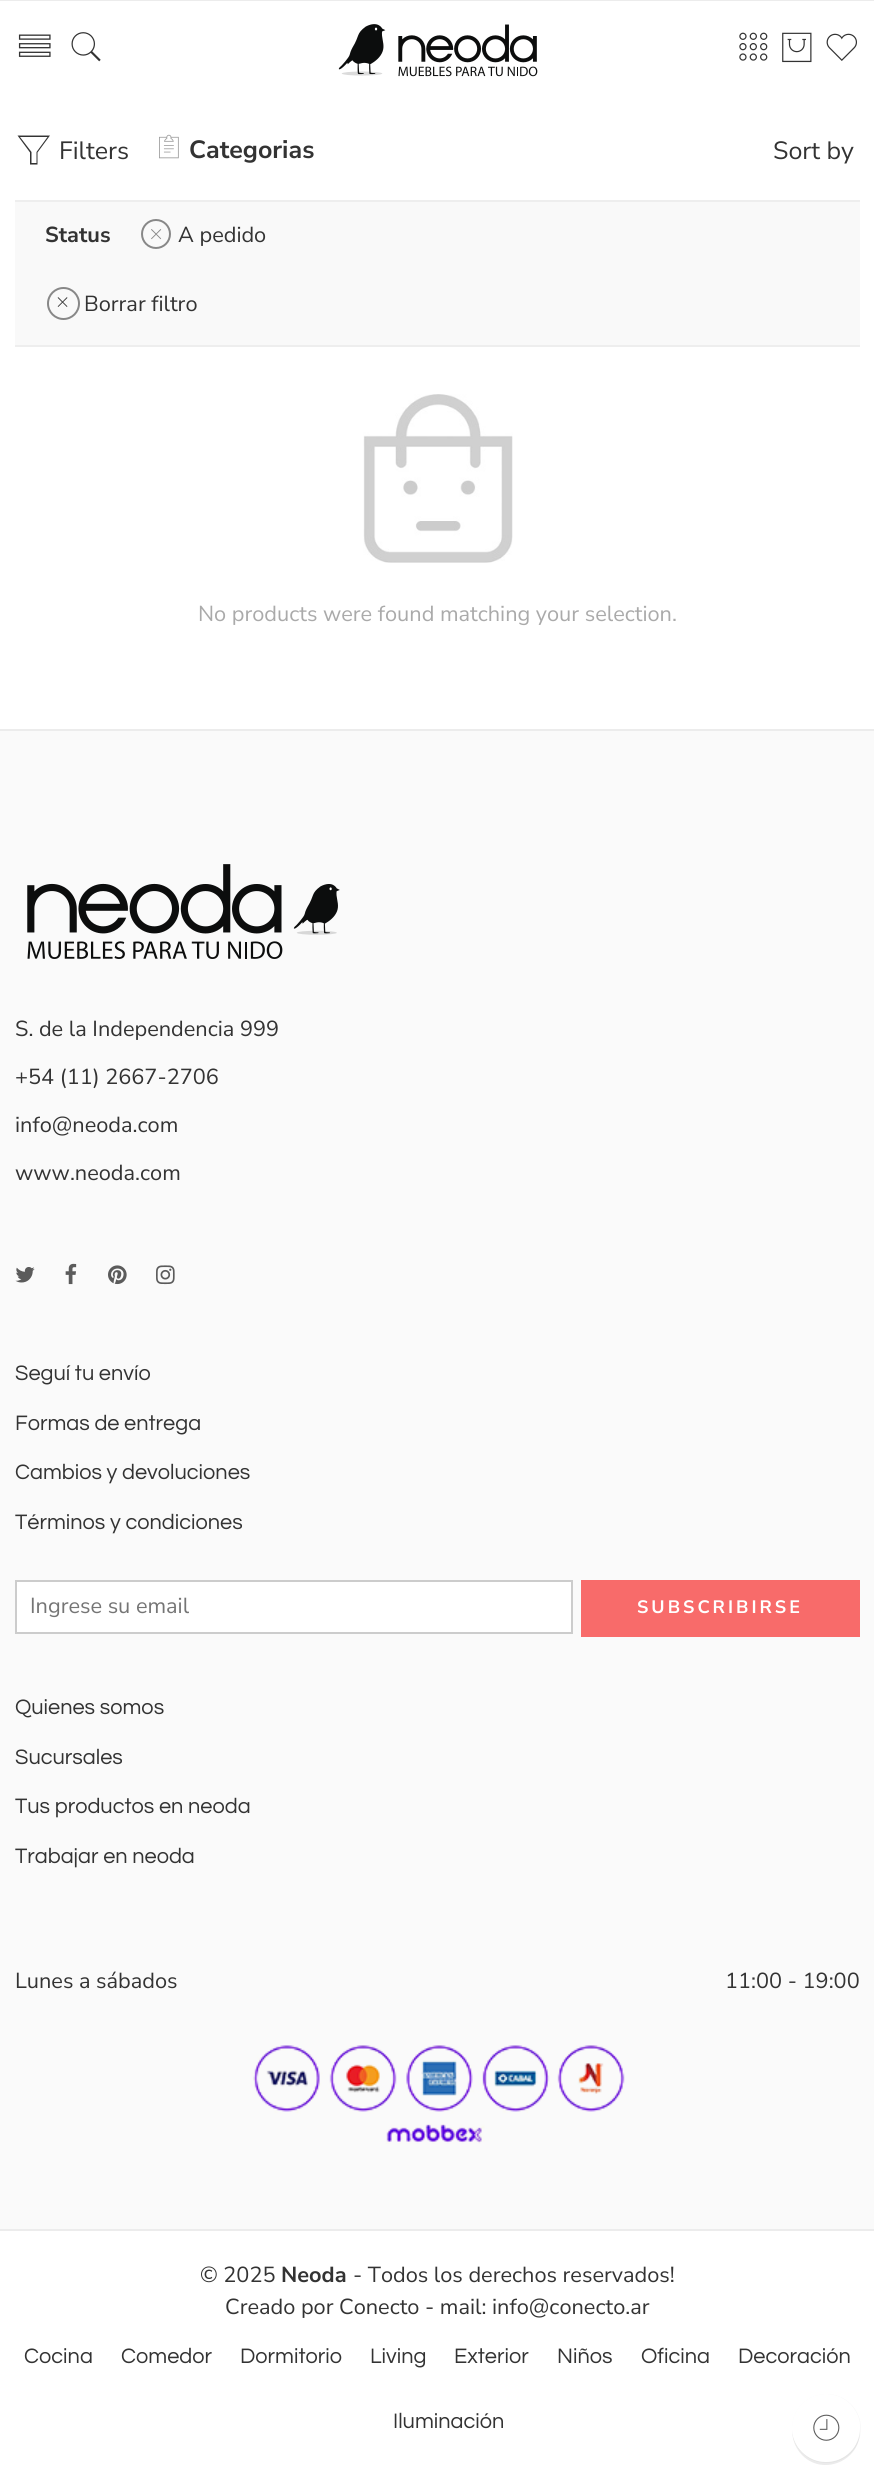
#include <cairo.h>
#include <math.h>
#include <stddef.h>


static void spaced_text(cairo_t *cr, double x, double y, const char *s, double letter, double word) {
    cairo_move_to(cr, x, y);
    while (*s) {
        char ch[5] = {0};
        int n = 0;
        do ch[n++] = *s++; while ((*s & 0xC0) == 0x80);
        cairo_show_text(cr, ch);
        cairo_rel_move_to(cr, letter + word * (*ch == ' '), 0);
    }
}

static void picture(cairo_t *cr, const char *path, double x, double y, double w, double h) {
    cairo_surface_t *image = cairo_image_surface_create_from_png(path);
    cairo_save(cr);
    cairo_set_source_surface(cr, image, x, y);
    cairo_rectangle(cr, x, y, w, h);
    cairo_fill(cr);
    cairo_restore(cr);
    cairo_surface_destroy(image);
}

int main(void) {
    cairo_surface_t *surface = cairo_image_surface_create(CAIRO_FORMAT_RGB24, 874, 2483);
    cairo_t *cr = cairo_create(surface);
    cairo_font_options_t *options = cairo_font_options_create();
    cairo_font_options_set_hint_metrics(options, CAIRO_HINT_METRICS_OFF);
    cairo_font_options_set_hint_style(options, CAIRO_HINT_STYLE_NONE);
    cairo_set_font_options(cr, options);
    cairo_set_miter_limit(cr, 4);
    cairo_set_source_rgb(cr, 1, 1, 1);
    cairo_paint(cr);
    cairo_set_source_rgb(cr, 0.925, 0.925, 0.925);
    cairo_rectangle(cr, 0, 0, 874, 1);
    cairo_fill(cr);
    picture(cr, "img1.png", 18, 34, 33, 23);
    picture(cr, "img2.png", 71, 32, 30, 30);
    picture(cr, "img3.png", 338, 24, 200, 53);
    picture(cr, "img4.png", 739, 32, 29, 29);
    picture(cr, "img5.png", 782, 32, 30, 31);
    picture(cr, "img6.png", 826, 33, 31, 28);
    cairo_set_source_rgb(cr, 0.2, 0.2, 0.2);
    cairo_new_path(cr);
    cairo_move_to(cr, 37.5, 164.5);
    cairo_line_to(cr, 30, 164.5);
    cairo_line_to(cr, 30, 152.5);
    cairo_line_to(cr, 17.5, 135.5);
    cairo_line_to(cr, 50, 135.5);
    cairo_line_to(cr, 37.5, 152.5);
    cairo_close_path(cr);
    cairo_move_to(cr, 31.5, 163);
    cairo_line_to(cr, 36.5, 163);
    cairo_line_to(cr, 36.5, 152);
    cairo_line_to(cr, 47.5, 137);
    cairo_line_to(cr, 20, 137);
    cairo_line_to(cr, 31.5, 152);
    cairo_close_path(cr);
    cairo_fill(cr);
    cairo_select_font_face(cr, "Nunito Sans", CAIRO_FONT_SLANT_NORMAL, CAIRO_FONT_WEIGHT_NORMAL);
    cairo_set_font_size(cr, 25);
    cairo_move_to(cr, 59, 159);
    cairo_show_text(cr, "Filters");
    picture(cr, "img7.png", 159, 134, 20, 25);
    cairo_select_font_face(cr, "Nunito Sans", CAIRO_FONT_SLANT_NORMAL, CAIRO_FONT_WEIGHT_BOLD);
    cairo_move_to(cr, 189, 158);
    cairo_show_text(cr, "Categorias");
    cairo_select_font_face(cr, "Nunito Sans", CAIRO_FONT_SLANT_NORMAL, CAIRO_FONT_WEIGHT_NORMAL);
    cairo_move_to(cr, 773, 159);
    cairo_show_text(cr, "Sort by");
    cairo_set_source_rgb(cr, 0.976, 0.976, 0.976);
    cairo_rectangle(cr, 15, 202, 845, 143);
    cairo_fill(cr);
    cairo_set_source_rgb(cr, 0.933, 0.933, 0.933);
    cairo_rectangle(cr, 15, 200, 845, 2);
    cairo_fill(cr);
    cairo_rectangle(cr, 15, 345, 845, 2);
    cairo_fill(cr);
    cairo_select_font_face(cr, "Nunito Sans", CAIRO_FONT_SLANT_NORMAL, CAIRO_FONT_WEIGHT_BOLD);
    cairo_set_font_size(cr, 21.75);
    cairo_set_source_rgb(cr, 0.2, 0.2, 0.2);
    cairo_move_to(cr, 45, 242);
    cairo_show_text(cr, "Status");
    cairo_new_path(cr);
    cairo_arc(cr, 156, 234, 14, 0, 2 * M_PI);
    cairo_set_source_rgb(cr, 0.533, 0.533, 0.533);
    cairo_stroke(cr);
    picture(cr, "img8.png", 151, 229, 11, 11);
    cairo_select_font_face(cr, "Nunito Sans", CAIRO_FONT_SLANT_NORMAL, CAIRO_FONT_WEIGHT_NORMAL);
    cairo_set_source_rgb(cr, 0.2, 0.2, 0.2);
    cairo_move_to(cr, 178, 242);
    cairo_show_text(cr, "A pedido");
    cairo_new_path(cr);
    cairo_arc(cr, 63.5, 303.5, 15.5, 0, 2 * M_PI);
    cairo_set_source_rgb(cr, 0.533, 0.533, 0.533);
    cairo_stroke(cr);
    picture(cr, "img9.png", 57, 297, 11, 10);
    cairo_set_source_rgb(cr, 0.2, 0.2, 0.2);
    cairo_move_to(cr, 84, 311);
    cairo_show_text(cr, "Borrar filtro");
    picture(cr, "img10.png", 363, 394, 150, 169);
    cairo_set_source_rgb(cr, 0.667, 0.667, 0.667);
    cairo_move_to(cr, 198, 621);
    cairo_show_text(cr, "No products were found matching your selection.");
    cairo_set_source_rgb(cr, 0.98, 0.98, 0.98);
    cairo_rectangle(cr, 0, 731, 874, 1498);
    cairo_fill(cr);
    cairo_set_source_rgb(cr, 0.925, 0.925, 0.925);
    cairo_rectangle(cr, 0, 729, 874, 2);
    cairo_fill(cr);
    picture(cr, "img11.png", 27, 864, 313, 95);
    cairo_set_source_rgb(cr, 0.2, 0.2, 0.2);
    cairo_move_to(cr, 15, 1036);
    cairo_show_text(cr, "S. de la Independencia 999");
    cairo_move_to(cr, 15, 1084);
    cairo_show_text(cr, "+54 (11) 2667-2706");
    cairo_move_to(cr, 15, 1132);
    cairo_show_text(cr, "info@neoda.com");
    cairo_move_to(cr, 15, 1180);
    cairo_show_text(cr, "www.neoda.com");
    picture(cr, "img12.png", 15, 1267, 20, 16);
    picture(cr, "img13.png", 65, 1263, 12, 22);
    picture(cr, "img14.png", 108, 1265, 19, 20);
    picture(cr, "img15.png", 156, 1265, 19, 20);
    cairo_select_font_face(cr, "Questrial", CAIRO_FONT_SLANT_NORMAL, CAIRO_FONT_WEIGHT_NORMAL);
    cairo_move_to(cr, 15, 1380);
    cairo_show_text(cr, "Seguí tu envío");
    cairo_move_to(cr, 15, 1430);
    cairo_show_text(cr, "Formas de entrega");
    cairo_move_to(cr, 15, 1479);
    cairo_show_text(cr, "Cambios y devoluciones");
    cairo_move_to(cr, 15, 1529);
    cairo_show_text(cr, "Términos y condiciones");
    cairo_set_source_rgb(cr, 1, 1, 1);
    cairo_rectangle(cr, 16, 1581, 556, 52);
    cairo_fill_preserve(cr);
    cairo_set_source_rgb(cr, 0.8, 0.8, 0.8);
    cairo_stroke(cr);
    cairo_select_font_face(cr, "Nunito Sans", CAIRO_FONT_SLANT_NORMAL, CAIRO_FONT_WEIGHT_NORMAL);
    cairo_set_source_rgb(cr, 0.459, 0.459, 0.459);
    cairo_move_to(cr, 30, 1613);
    cairo_show_text(cr, "Ingrese su email");
    cairo_set_source_rgb(cr, 0.969, 0.42, 0.416);
    cairo_rectangle(cr, 581, 1580, 279, 57);
    cairo_fill(cr);
    cairo_select_font_face(cr, "Nunito Sans", CAIRO_FONT_SLANT_NORMAL, CAIRO_FONT_WEIGHT_BOLD);
    cairo_set_font_size(cr, 18);
    cairo_set_source_rgb(cr, 1, 1, 1);
    spaced_text(cr, 637, 1613, "SUBSCRIBIRSE", 3, 0);
    cairo_select_font_face(cr, "Questrial", CAIRO_FONT_SLANT_NORMAL, CAIRO_FONT_WEIGHT_NORMAL);
    cairo_set_font_size(cr, 21.75);
    cairo_set_source_rgb(cr, 0.2, 0.2, 0.2);
    cairo_move_to(cr, 15, 1714);
    cairo_show_text(cr, "Quienes somos");
    cairo_move_to(cr, 15, 1764);
    cairo_show_text(cr, "Sucursales");
    cairo_move_to(cr, 15, 1813);
    cairo_show_text(cr, "Tus productos en neoda");
    cairo_move_to(cr, 15, 1863);
    cairo_show_text(cr, "Trabajar en neoda");
    cairo_select_font_face(cr, "Nunito Sans", CAIRO_FONT_SLANT_NORMAL, CAIRO_FONT_WEIGHT_NORMAL);
    cairo_move_to(cr, 15, 1988);
    cairo_show_text(cr, "Lunes a sábados");
    cairo_move_to(cr, 725, 1988);
    cairo_show_text(cr, "11:00 - 19:00");
    picture(cr, "img16.png", 251, 2045, 374, 99);
    cairo_set_source_rgb(cr, 0.925, 0.925, 0.925);
    cairo_rectangle(cr, 0, 2229, 874, 2);
    cairo_fill(cr);
    cairo_set_source_rgb(cr, 0.2, 0.2, 0.2);
    cairo_move_to(cr, 200, 2282);
    cairo_show_text(cr, "© 2025");
    cairo_select_font_face(cr, "Nunito Sans", CAIRO_FONT_SLANT_NORMAL, CAIRO_FONT_WEIGHT_BOLD);
    cairo_move_to(cr, 281, 2282);
    cairo_show_text(cr, "Neoda");
    cairo_select_font_face(cr, "Nunito Sans", CAIRO_FONT_SLANT_NORMAL, CAIRO_FONT_WEIGHT_NORMAL);
    cairo_move_to(cr, 353, 2282);
    cairo_show_text(cr, "- Todos los derechos reservados!");
    cairo_move_to(cr, 225, 2314);
    cairo_show_text(cr, "Creado por Conecto - mail: info@conecto.ar");
    cairo_select_font_face(cr, "Questrial", CAIRO_FONT_SLANT_NORMAL, CAIRO_FONT_WEIGHT_NORMAL);
    cairo_move_to(cr, 24, 2363);
    cairo_show_text(cr, "Cocina");
    cairo_move_to(cr, 121, 2363);
    cairo_show_text(cr, "Comedor");
    cairo_move_to(cr, 240, 2363);
    cairo_show_text(cr, "Dormitorio");
    cairo_move_to(cr, 370, 2363);
    cairo_show_text(cr, "Living");
    cairo_move_to(cr, 454, 2363);
    cairo_show_text(cr, "Exterior");
    cairo_move_to(cr, 557, 2363);
    cairo_show_text(cr, "Niños");
    cairo_move_to(cr, 641, 2363);
    cairo_show_text(cr, "Oficina");
    cairo_move_to(cr, 738, 2363);
    cairo_show_text(cr, "Decoración");
    cairo_move_to(cr, 393, 2428);
    cairo_show_text(cr, "Iluminación");
    cairo_new_path(cr);
    cairo_arc(cr, 826.5, 2428.5, 34.1, 0, 2 * M_PI);
    cairo_set_source_rgb(cr, 0.969, 0.969, 0.969);
    cairo_set_line_width(cr, 0.8);
    cairo_stroke(cr);
    cairo_set_source_rgba(cr, 0, 0, 0, 0.08);
    cairo_new_path(cr);
    cairo_move_to(cr, 792, 2429);
    cairo_curve_to(cr, 792, 2437, 794, 2444, 798, 2450);
    cairo_curve_to(cr, 819, 2481, 867, 2460, 859, 2424);
    cairo_curve_to(cr, 860, 2432, 858, 2440, 854, 2447);
    cairo_curve_to(cr, 836, 2473, 794, 2461, 792, 2429);
    cairo_close_path(cr);
    cairo_fill(cr);
    cairo_set_source_rgb(cr, 1, 1, 1);
    cairo_arc(cr, 826, 2428, 34, 0, 2 * M_PI);
    cairo_fill(cr);
    picture(cr, "img17.png", 813, 2414, 27, 27);
    cairo_surface_write_to_png(surface, "page.png");
    cairo_font_options_destroy(options);
    cairo_destroy(cr);
    cairo_surface_destroy(surface);
    return 0;
}
